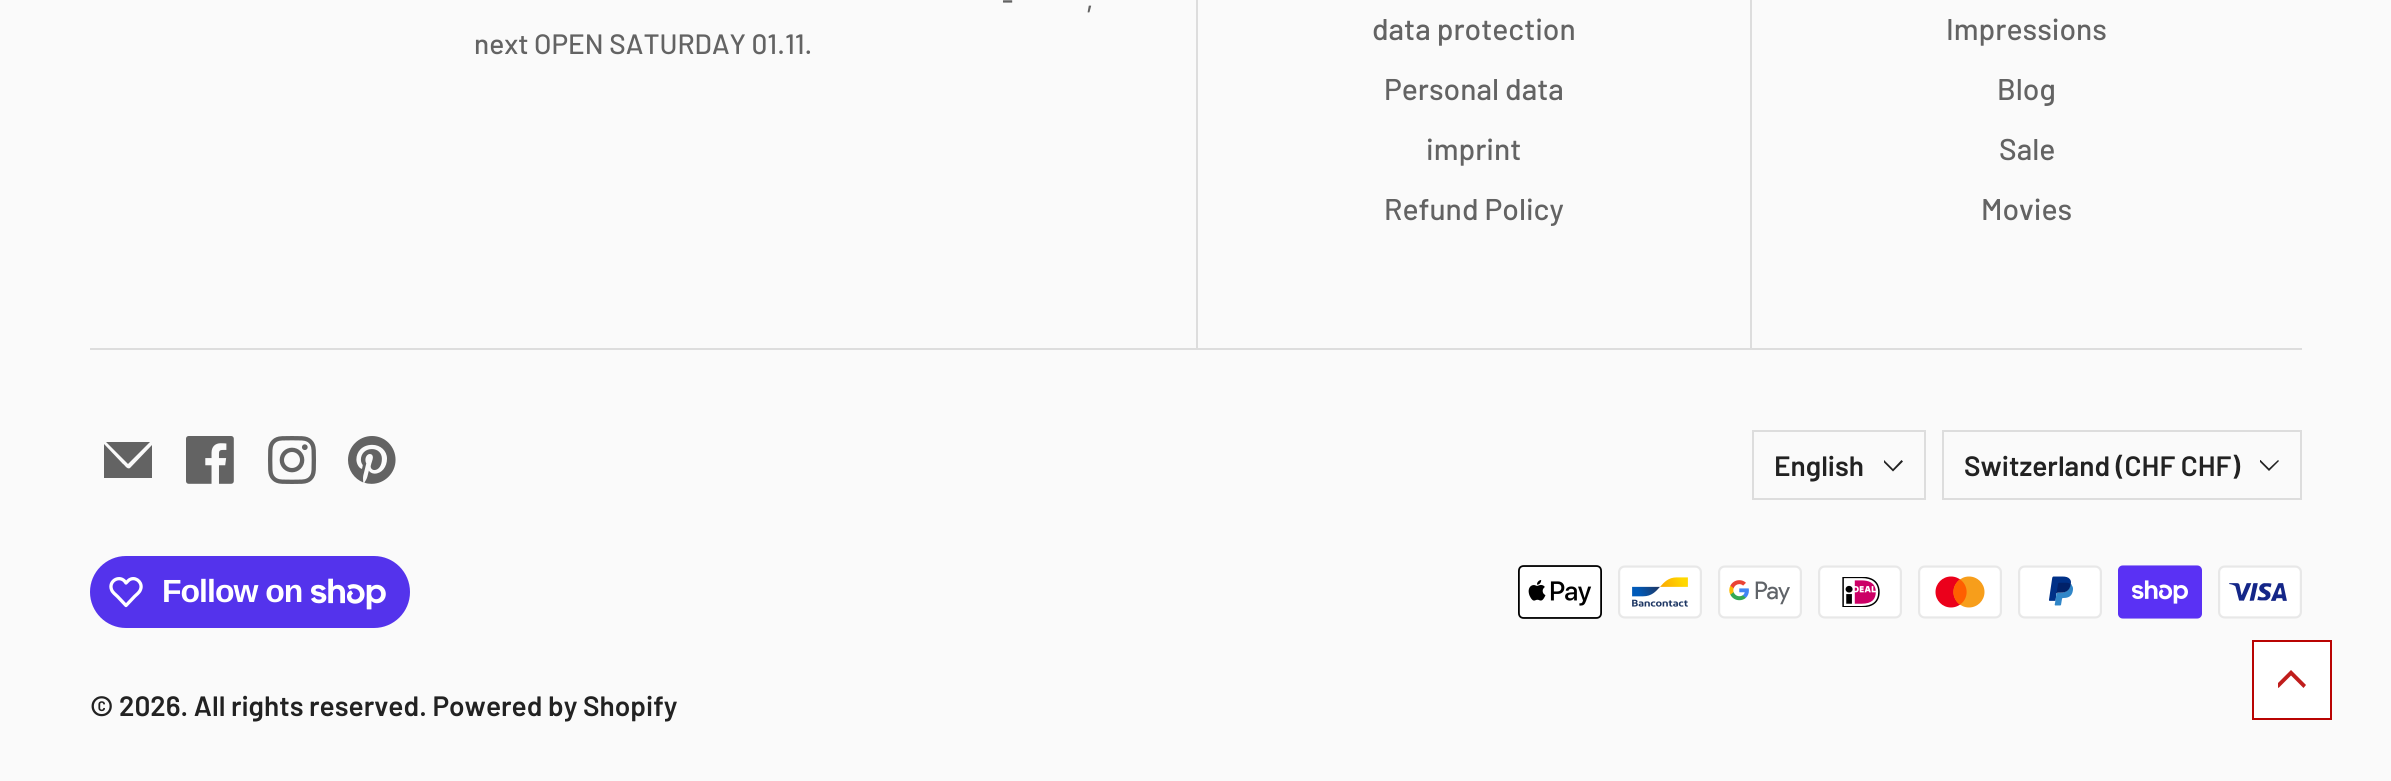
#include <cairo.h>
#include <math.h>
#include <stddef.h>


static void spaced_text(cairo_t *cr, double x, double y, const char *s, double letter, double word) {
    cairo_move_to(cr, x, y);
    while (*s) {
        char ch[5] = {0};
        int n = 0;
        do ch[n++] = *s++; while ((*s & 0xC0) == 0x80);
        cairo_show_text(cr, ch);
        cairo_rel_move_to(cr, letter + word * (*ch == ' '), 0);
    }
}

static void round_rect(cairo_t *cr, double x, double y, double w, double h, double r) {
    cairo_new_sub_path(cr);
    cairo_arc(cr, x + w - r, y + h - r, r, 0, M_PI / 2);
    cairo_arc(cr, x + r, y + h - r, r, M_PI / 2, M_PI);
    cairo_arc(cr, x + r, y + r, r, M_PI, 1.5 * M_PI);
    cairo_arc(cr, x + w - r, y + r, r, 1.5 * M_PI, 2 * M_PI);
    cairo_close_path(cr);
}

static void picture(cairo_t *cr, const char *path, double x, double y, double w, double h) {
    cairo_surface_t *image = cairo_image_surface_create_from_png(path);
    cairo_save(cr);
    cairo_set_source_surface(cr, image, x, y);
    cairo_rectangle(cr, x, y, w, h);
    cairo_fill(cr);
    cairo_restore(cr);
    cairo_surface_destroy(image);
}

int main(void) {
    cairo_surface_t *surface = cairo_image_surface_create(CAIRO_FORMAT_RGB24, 2391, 781);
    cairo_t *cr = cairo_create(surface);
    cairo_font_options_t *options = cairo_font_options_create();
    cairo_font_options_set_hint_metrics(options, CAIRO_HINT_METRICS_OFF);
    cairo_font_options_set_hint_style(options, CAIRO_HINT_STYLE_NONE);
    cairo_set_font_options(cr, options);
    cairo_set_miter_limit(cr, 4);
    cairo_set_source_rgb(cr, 0.98, 0.98, 0.98);
    cairo_paint(cr);
    cairo_set_source_rgb(cr, 0.867, 0.867, 0.867);
    cairo_rectangle(cr, 90, 348, 2212, 2);
    cairo_fill(cr);
    cairo_select_font_face(cr, "Barlow Medium", CAIRO_FONT_SLANT_NORMAL, CAIRO_FONT_WEIGHT_NORMAL);
    cairo_set_font_size(cr, 28);
    cairo_set_source_rgb(cr, 0.388, 0.388, 0.388);
    cairo_move_to(cr, 1002, 10);
    cairo_show_text(cr, "-");
    cairo_move_to(cr, 1086, 10);
    cairo_show_text(cr, ",");
    cairo_move_to(cr, 474, 54);
    cairo_show_text(cr, "next OPEN SATURDAY 01.11.");
    cairo_set_source_rgb(cr, 0.867, 0.867, 0.867);
    cairo_rectangle(cr, 1196, 0, 2, 348);
    cairo_fill(cr);
    cairo_set_font_size(cr, 30);
    cairo_set_source_rgb(cr, 0.388, 0.388, 0.388);
    cairo_move_to(cr, 1372, 40);
    cairo_show_text(cr, "data protection");
    cairo_move_to(cr, 1384, 100);
    cairo_show_text(cr, "Personal data");
    cairo_move_to(cr, 1426, 160);
    cairo_show_text(cr, "imprint");
    cairo_move_to(cr, 1384, 220);
    cairo_show_text(cr, "Refund Policy");
    cairo_set_source_rgb(cr, 0.867, 0.867, 0.867);
    cairo_rectangle(cr, 1750, 0, 2, 348);
    cairo_fill(cr);
    cairo_set_source_rgb(cr, 0.388, 0.388, 0.388);
    cairo_move_to(cr, 1946, 40);
    cairo_show_text(cr, "Impressions");
    cairo_move_to(cr, 1997, 100);
    cairo_show_text(cr, "Blog");
    cairo_move_to(cr, 1999, 160);
    cairo_show_text(cr, "Sale");
    cairo_move_to(cr, 1981, 220);
    cairo_show_text(cr, "Movies");
    cairo_new_path(cr);
    cairo_move_to(cr, 130, 468);
    cairo_curve_to(cr, 127, 470, 124, 464, 123, 464);
    cairo_line_to(cr, 104, 444);
    cairo_line_to(cr, 104, 478);
    cairo_line_to(cr, 152, 478);
    cairo_line_to(cr, 152, 445);
    cairo_close_path(cr);
    cairo_fill(cr);
    cairo_new_path(cr);
    cairo_move_to(cr, 150, 442);
    cairo_line_to(cr, 106, 442);
    cairo_line_to(cr, 128, 464);
    cairo_close_path(cr);
    cairo_fill(cr);
    picture(cr, "img1.png", 186, 436, 48, 48);
    picture(cr, "img2.png", 268, 436, 48, 48);
    picture(cr, "img3.png", 348, 436, 48, 48);
    cairo_rectangle(cr, 1753, 431, 172, 68);
    cairo_set_source_rgb(cr, 0.867, 0.867, 0.867);
    cairo_stroke(cr);
    cairo_select_font_face(cr, "Barlow SemiBold", CAIRO_FONT_SLANT_NORMAL, CAIRO_FONT_WEIGHT_NORMAL);
    cairo_set_font_size(cr, 28);
    cairo_set_source_rgb(cr, 0.133, 0.133, 0.133);
    cairo_move_to(cr, 1774, 476);
    cairo_show_text(cr, "English");
    cairo_new_path(cr);
    cairo_move_to(cr, 1893, 469);
    cairo_line_to(cr, 1884, 460);
    cairo_line_to(cr, 1884, 462.5);
    cairo_line_to(cr, 1893, 471.5);
    cairo_line_to(cr, 1903, 461.5);
    cairo_line_to(cr, 1901.5, 460);
    cairo_close_path(cr);
    cairo_fill(cr);
    cairo_rectangle(cr, 1943, 431, 358, 68);
    cairo_set_source_rgb(cr, 0.867, 0.867, 0.867);
    cairo_stroke(cr);
    cairo_set_source_rgb(cr, 0.133, 0.133, 0.133);
    cairo_move_to(cr, 1964, 476);
    cairo_show_text(cr, "Switzerland (CHF CHF)");
    cairo_new_path(cr);
    cairo_move_to(cr, 2269, 468.5);
    cairo_line_to(cr, 2260.5, 460);
    cairo_line_to(cr, 2260, 460);
    cairo_line_to(cr, 2260, 462);
    cairo_line_to(cr, 2269, 471);
    cairo_line_to(cr, 2279, 461);
    cairo_line_to(cr, 2278, 460);
    cairo_close_path(cr);
    cairo_fill(cr);
    cairo_set_source_rgb(cr, 0.329, 0.2, 0.922);
    round_rect(cr, 90, 556, 320, 72, 36);
    cairo_fill(cr);
    cairo_new_path(cr);
    cairo_move_to(cr, 124.5, 581);
    cairo_line_to(cr, 126, 583);
    cairo_curve_to(cr, 127.5, 581.5, 129, 579.5, 131, 579);
    cairo_curve_to(cr, 137, 577, 143, 583.5, 140.5, 589.5);
    cairo_curve_to(cr, 139.5, 592.5, 136.5, 594.5, 134.5, 596.5);
    cairo_line_to(cr, 126, 605.5);
    cairo_line_to(cr, 117.5, 596.5);
    cairo_curve_to(cr, 115.5, 594.5, 112.5, 592.5, 111.5, 589.5);
    cairo_curve_to(cr, 108.5, 581.5, 118.5, 575, 124.5, 581);
    cairo_close_path(cr);
    cairo_set_source_rgb(cr, 1, 1, 1);
    cairo_set_line_width(cr, 3.3);
    cairo_set_line_join(cr, CAIRO_LINE_JOIN_ROUND);
    cairo_stroke(cr);
    cairo_select_font_face(cr, "Liberation Sans", CAIRO_FONT_SLANT_NORMAL, CAIRO_FONT_WEIGHT_BOLD);
    cairo_set_font_size(cr, 32);
    spaced_text(cr, 162, 602, "Follow on", -1, 0);
    picture(cr, "img4.png", 311, 578, 75, 32);
    picture(cr, "img5.png", 1518, 565, 84, 54);
    picture(cr, "img6.png", 1618, 565, 84, 54);
    picture(cr, "img7.png", 1718, 565, 84, 54);
    picture(cr, "img8.png", 1818, 565, 84, 54);
    picture(cr, "img9.png", 1918, 565, 84, 54);
    picture(cr, "img10.png", 2018, 565, 84, 54);
    picture(cr, "img11.png", 2118, 565, 84, 54);
    picture(cr, "img12.png", 2218, 565, 84, 54);
    cairo_select_font_face(cr, "Barlow SemiBold", CAIRO_FONT_SLANT_NORMAL, CAIRO_FONT_WEIGHT_NORMAL);
    cairo_set_font_size(cr, 28);
    cairo_set_source_rgb(cr, 0.133, 0.133, 0.133);
    cairo_move_to(cr, 90, 716);
    cairo_show_text(cr, "© 2026. All rights reserved. Powered by Shopify");
    cairo_set_source_rgb(cr, 1, 1, 1);
    cairo_rectangle(cr, 2253, 641, 78, 78);
    cairo_fill_preserve(cr);
    cairo_set_source_rgb(cr, 0.725, 0.016, 0.012);
    cairo_set_line_width(cr, 2);
    cairo_set_line_join(cr, CAIRO_LINE_JOIN_MITER);
    cairo_stroke(cr);
    cairo_save(cr);
    cairo_rectangle(cr, 2278, 662, 30, 38);
    cairo_clip(cr);
    cairo_set_source_rgb(cr, 0.753, 0.114, 0.11);
    cairo_new_path(cr);
    cairo_move_to(cr, 2306, 685);
    cairo_line_to(cr, 2303.5, 688);
    cairo_line_to(cr, 2291, 675.5);
    cairo_line_to(cr, 2278.5, 688);
    cairo_line_to(cr, 2276, 685);
    cairo_line_to(cr, 2291, 670);
    cairo_close_path(cr);
    cairo_fill(cr);
    cairo_restore(cr);
    cairo_surface_write_to_png(surface, "page.png");
    cairo_font_options_destroy(options);
    cairo_destroy(cr);
    cairo_surface_destroy(surface);
    return 0;
}
